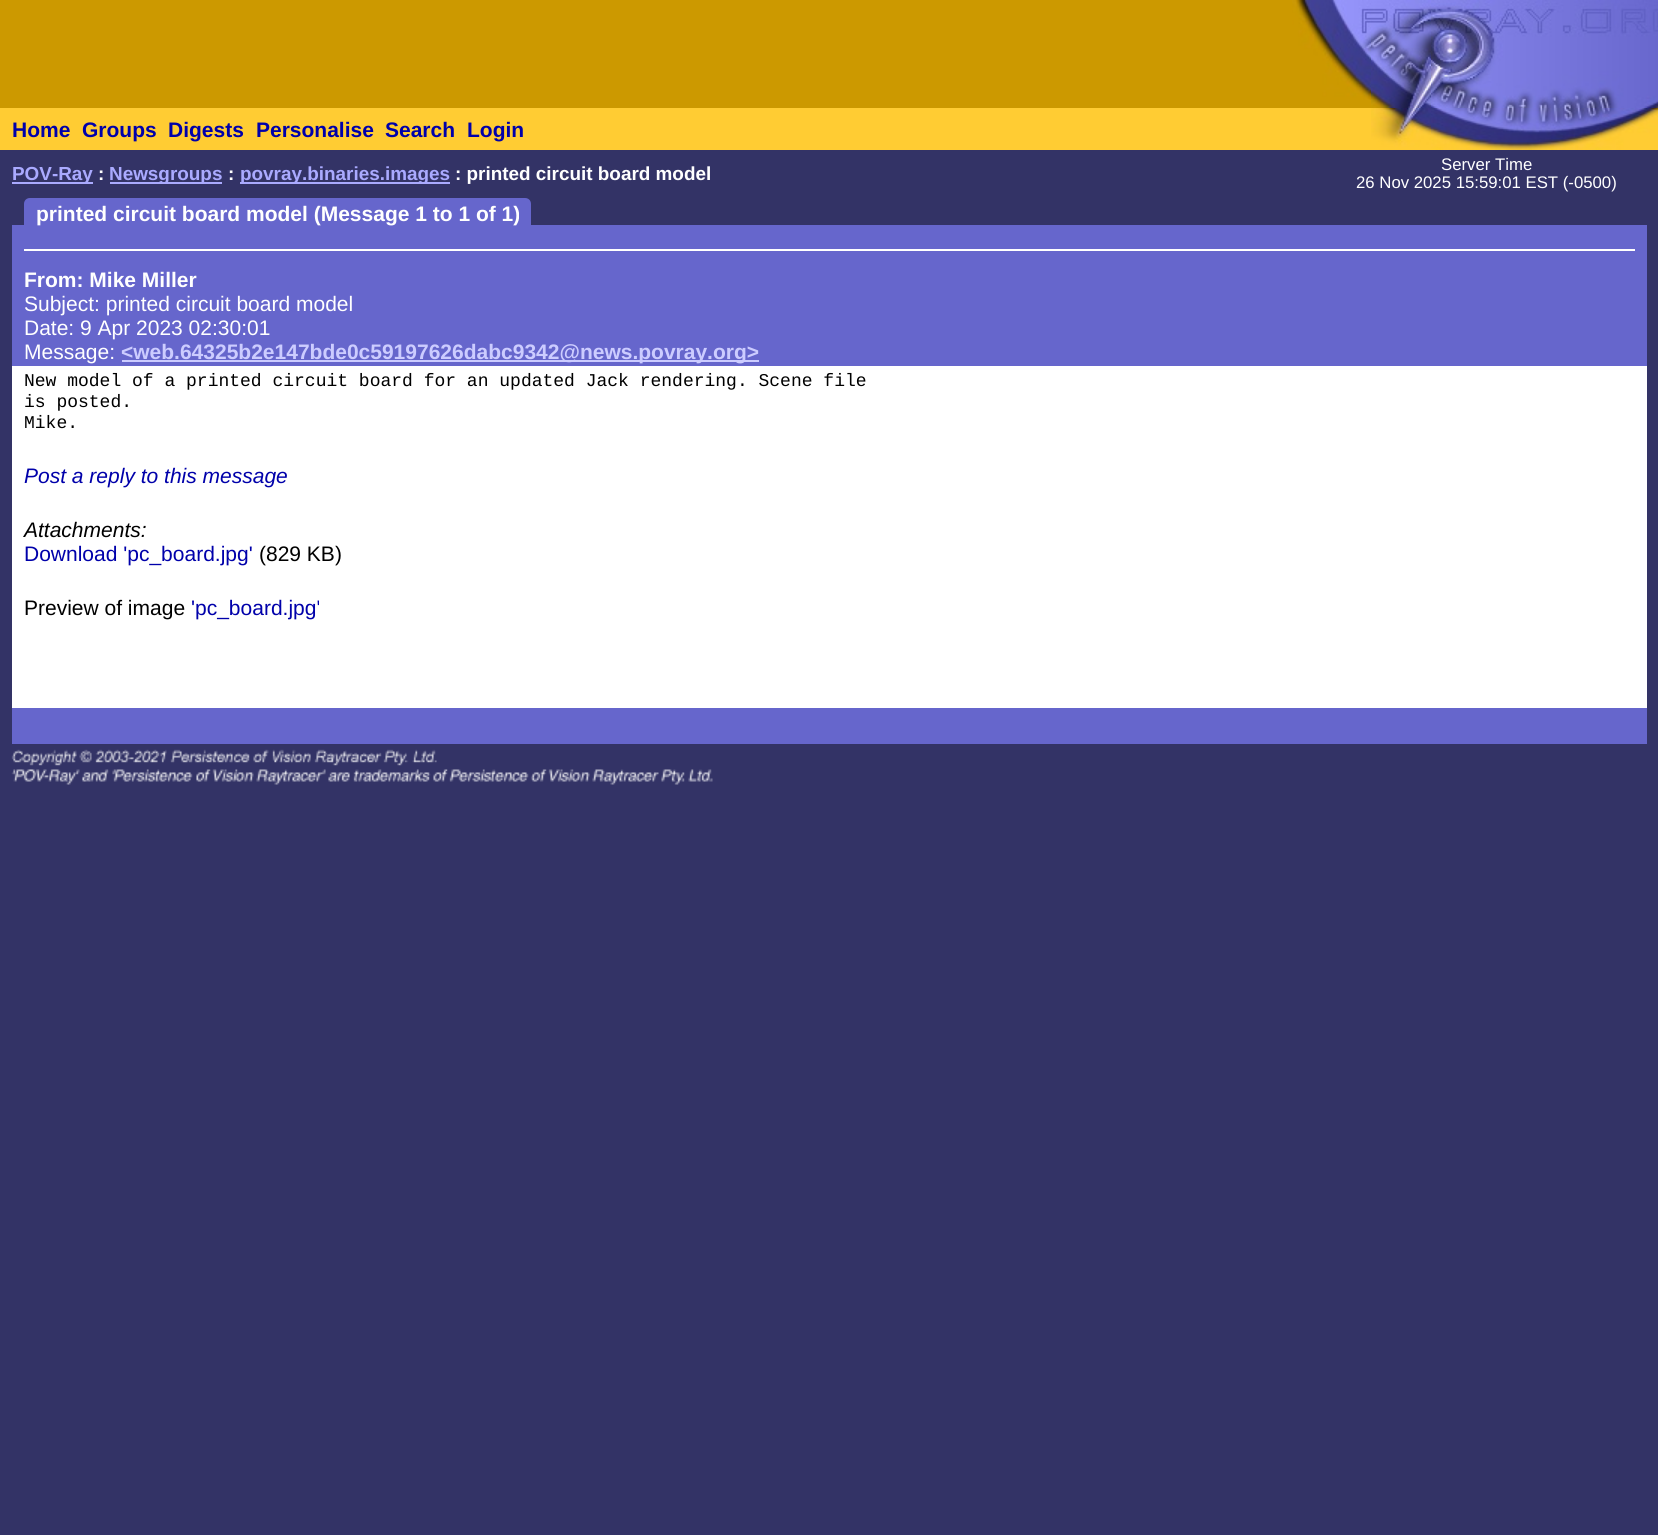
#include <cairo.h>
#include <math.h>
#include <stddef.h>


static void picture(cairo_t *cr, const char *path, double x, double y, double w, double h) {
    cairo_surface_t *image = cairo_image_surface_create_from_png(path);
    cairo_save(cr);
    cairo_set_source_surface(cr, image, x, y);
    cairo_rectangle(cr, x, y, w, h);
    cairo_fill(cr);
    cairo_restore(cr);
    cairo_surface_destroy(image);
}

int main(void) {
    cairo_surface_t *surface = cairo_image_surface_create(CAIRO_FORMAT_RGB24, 1658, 1535);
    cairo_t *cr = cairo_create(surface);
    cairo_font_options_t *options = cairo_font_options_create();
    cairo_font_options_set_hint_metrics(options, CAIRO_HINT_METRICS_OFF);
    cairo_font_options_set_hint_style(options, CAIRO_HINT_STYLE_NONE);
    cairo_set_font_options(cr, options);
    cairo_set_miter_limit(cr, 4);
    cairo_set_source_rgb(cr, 0.2, 0.2, 0.4);
    cairo_paint(cr);
    cairo_set_source_rgb(cr, 0.8, 0.6, 0);
    cairo_rectangle(cr, 0, 0, 1371, 108);
    cairo_fill(cr);
    picture(cr, "img1.png", 1292, 0, 79, 100);
    picture(cr, "img2.png", 1371, 0, 60, 108);
    picture(cr, "img3.png", 1431, 0, 227, 108);
    cairo_set_source_rgb(cr, 1, 0.8, 0.2);
    cairo_rectangle(cr, 0, 108, 1371, 42);
    cairo_fill(cr);
    cairo_select_font_face(cr, "Liberation Sans", CAIRO_FONT_SLANT_NORMAL, CAIRO_FONT_WEIGHT_BOLD);
    cairo_set_font_size(cr, 21);
    cairo_set_source_rgb(cr, 0, 0, 0.667);
    cairo_move_to(cr, 12, 137);
    cairo_show_text(cr, "Home");
    cairo_move_to(cr, 82, 137);
    cairo_show_text(cr, "Groups");
    cairo_move_to(cr, 168, 137);
    cairo_show_text(cr, "Digests");
    cairo_move_to(cr, 256, 137);
    cairo_show_text(cr, "Personalise");
    cairo_move_to(cr, 385, 137);
    cairo_show_text(cr, "Search");
    cairo_move_to(cr, 467, 137);
    cairo_show_text(cr, "Login");
    cairo_set_source_rgb(cr, 1, 0.8, 0.2);
    cairo_rectangle(cr, 1371, 147, 60, 3);
    cairo_fill(cr);
    picture(cr, "img4.png", 1371, 108, 60, 39);
    picture(cr, "img5.png", 1431, 108, 227, 42);
    cairo_set_source_rgb(cr, 0.667, 0.667, 1);
    cairo_rectangle(cr, 12, 182, 81, 2);
    cairo_fill(cr);
    cairo_set_font_size(cr, 18.9);
    cairo_move_to(cr, 12, 180);
    cairo_show_text(cr, "POV-Ray");
    cairo_set_source_rgb(cr, 1, 1, 1);
    cairo_move_to(cr, 98, 180);
    cairo_show_text(cr, ":");
    cairo_set_source_rgb(cr, 0.667, 0.667, 1);
    cairo_rectangle(cr, 110, 182, 112, 2);
    cairo_fill(cr);
    cairo_move_to(cr, 109, 180);
    cairo_show_text(cr, "Newsgroups");
    cairo_set_source_rgb(cr, 1, 1, 1);
    cairo_move_to(cr, 228, 180);
    cairo_show_text(cr, ":");
    cairo_set_source_rgb(cr, 0.667, 0.667, 1);
    cairo_rectangle(cr, 240, 182, 210, 2);
    cairo_fill(cr);
    cairo_move_to(cr, 240, 180);
    cairo_show_text(cr, "povray.binaries.images");
    cairo_set_source_rgb(cr, 1, 1, 1);
    cairo_move_to(cr, 455, 180);
    cairo_show_text(cr, ": printed circuit board model");
    cairo_select_font_face(cr, "Liberation Sans", CAIRO_FONT_SLANT_NORMAL, CAIRO_FONT_WEIGHT_NORMAL);
    cairo_set_font_size(cr, 16.75);
    cairo_move_to(cr, 1441, 170);
    cairo_show_text(cr, "Server Time");
    cairo_move_to(cr, 1356, 188);
    cairo_show_text(cr, "26 Nov 2025 15:59:01 EST (-0500)");
    cairo_set_source_rgb(cr, 0.4, 0.4, 0.8);
    cairo_new_path(cr);
    cairo_move_to(cr, 30, 198);
    cairo_line_to(cr, 525, 198);
    cairo_curve_to(cr, 528.5, 198, 531, 200.5, 531, 204);
    cairo_line_to(cr, 531, 225);
    cairo_line_to(cr, 24, 225);
    cairo_line_to(cr, 24, 204);
    cairo_curve_to(cr, 24, 200.5, 26.5, 198, 30, 198);
    cairo_close_path(cr);
    cairo_fill(cr);
    cairo_rectangle(cr, 12, 225, 1635, 6);
    cairo_fill(cr);
    cairo_select_font_face(cr, "Liberation Sans", CAIRO_FONT_SLANT_NORMAL, CAIRO_FONT_WEIGHT_BOLD);
    cairo_set_font_size(cr, 21);
    cairo_set_source_rgb(cr, 1, 1, 1);
    cairo_move_to(cr, 36, 221);
    cairo_show_text(cr, "printed circuit board model (Message 1 to 1 of 1)");
    cairo_set_source_rgb(cr, 0.4, 0.4, 0.8);
    cairo_rectangle(cr, 12, 231, 1635, 36);
    cairo_fill(cr);
    cairo_set_source_rgb(cr, 1, 1, 1);
    cairo_rectangle(cr, 24, 249, 1611, 2);
    cairo_fill(cr);
    cairo_set_source_rgb(cr, 0.4, 0.4, 0.8);
    cairo_rectangle(cr, 12, 267, 1635, 99);
    cairo_fill(cr);
    cairo_set_source_rgb(cr, 1, 1, 1);
    cairo_move_to(cr, 24, 287);
    cairo_show_text(cr, "From: Mike Miller");
    cairo_select_font_face(cr, "Liberation Sans", CAIRO_FONT_SLANT_NORMAL, CAIRO_FONT_WEIGHT_NORMAL);
    cairo_move_to(cr, 24, 311);
    cairo_show_text(cr, "Subject: printed circuit board model");
    cairo_move_to(cr, 24, 335);
    cairo_show_text(cr, "Date: 9 Apr 2023 02:30:01");
    cairo_move_to(cr, 24, 359);
    cairo_show_text(cr, "Message:");
    cairo_set_source_rgb(cr, 0.8, 0.8, 1);
    cairo_rectangle(cr, 122, 360, 637, 2);
    cairo_fill(cr);
    cairo_select_font_face(cr, "Liberation Sans", CAIRO_FONT_SLANT_NORMAL, CAIRO_FONT_WEIGHT_BOLD);
    cairo_move_to(cr, 121, 359);
    cairo_show_text(cr, "<web.64325b2e147bde0c59197626dabc9342@news.povray.org>");
    cairo_set_source_rgb(cr, 1, 1, 1);
    cairo_rectangle(cr, 12, 366, 1635, 3);
    cairo_fill(cr);
    cairo_rectangle(cr, 12, 369, 1635, 339);
    cairo_fill(cr);
    cairo_select_font_face(cr, "Liberation Mono", CAIRO_FONT_SLANT_NORMAL, CAIRO_FONT_WEIGHT_NORMAL);
    cairo_set_font_size(cr, 18);
    cairo_set_source_rgb(cr, 0, 0, 0);
    cairo_move_to(cr, 24, 386);
    cairo_show_text(cr, "New model of a printed circuit board for an updated Jack rendering. Scene file");
    cairo_move_to(cr, 24, 407);
    cairo_show_text(cr, "is posted.");
    cairo_move_to(cr, 24, 428);
    cairo_show_text(cr, "Mike.");
    cairo_select_font_face(cr, "Liberation Sans", CAIRO_FONT_SLANT_ITALIC, CAIRO_FONT_WEIGHT_NORMAL);
    cairo_set_font_size(cr, 21);
    cairo_set_source_rgb(cr, 0, 0, 0.667);
    cairo_move_to(cr, 24, 483);
    cairo_show_text(cr, "Post a reply to this message");
    cairo_set_source_rgb(cr, 0, 0, 0);
    cairo_move_to(cr, 24, 537);
    cairo_show_text(cr, "Attachments:");
    cairo_select_font_face(cr, "Liberation Sans", CAIRO_FONT_SLANT_NORMAL, CAIRO_FONT_WEIGHT_NORMAL);
    cairo_set_source_rgb(cr, 0, 0, 0.667);
    cairo_move_to(cr, 24, 561);
    cairo_show_text(cr, "Download 'pc_board.jpg'");
    cairo_set_source_rgb(cr, 0, 0, 0);
    cairo_move_to(cr, 259, 561);
    cairo_show_text(cr, "(829 KB)");
    cairo_move_to(cr, 24, 615);
    cairo_show_text(cr, "Preview of image");
    cairo_set_source_rgb(cr, 0, 0, 0.667);
    cairo_move_to(cr, 191, 615);
    cairo_show_text(cr, "'pc_board.jpg'");
    cairo_set_source_rgb(cr, 0.4, 0.4, 0.8);
    cairo_rectangle(cr, 12, 708, 1635, 3);
    cairo_fill(cr);
    cairo_rectangle(cr, 12, 711, 1635, 33);
    cairo_fill(cr);
    picture(cr, "img6.png", 11, 749, 702, 36);
    cairo_surface_write_to_png(surface, "page.png");
    cairo_font_options_destroy(options);
    cairo_destroy(cr);
    cairo_surface_destroy(surface);
    return 0;
}
